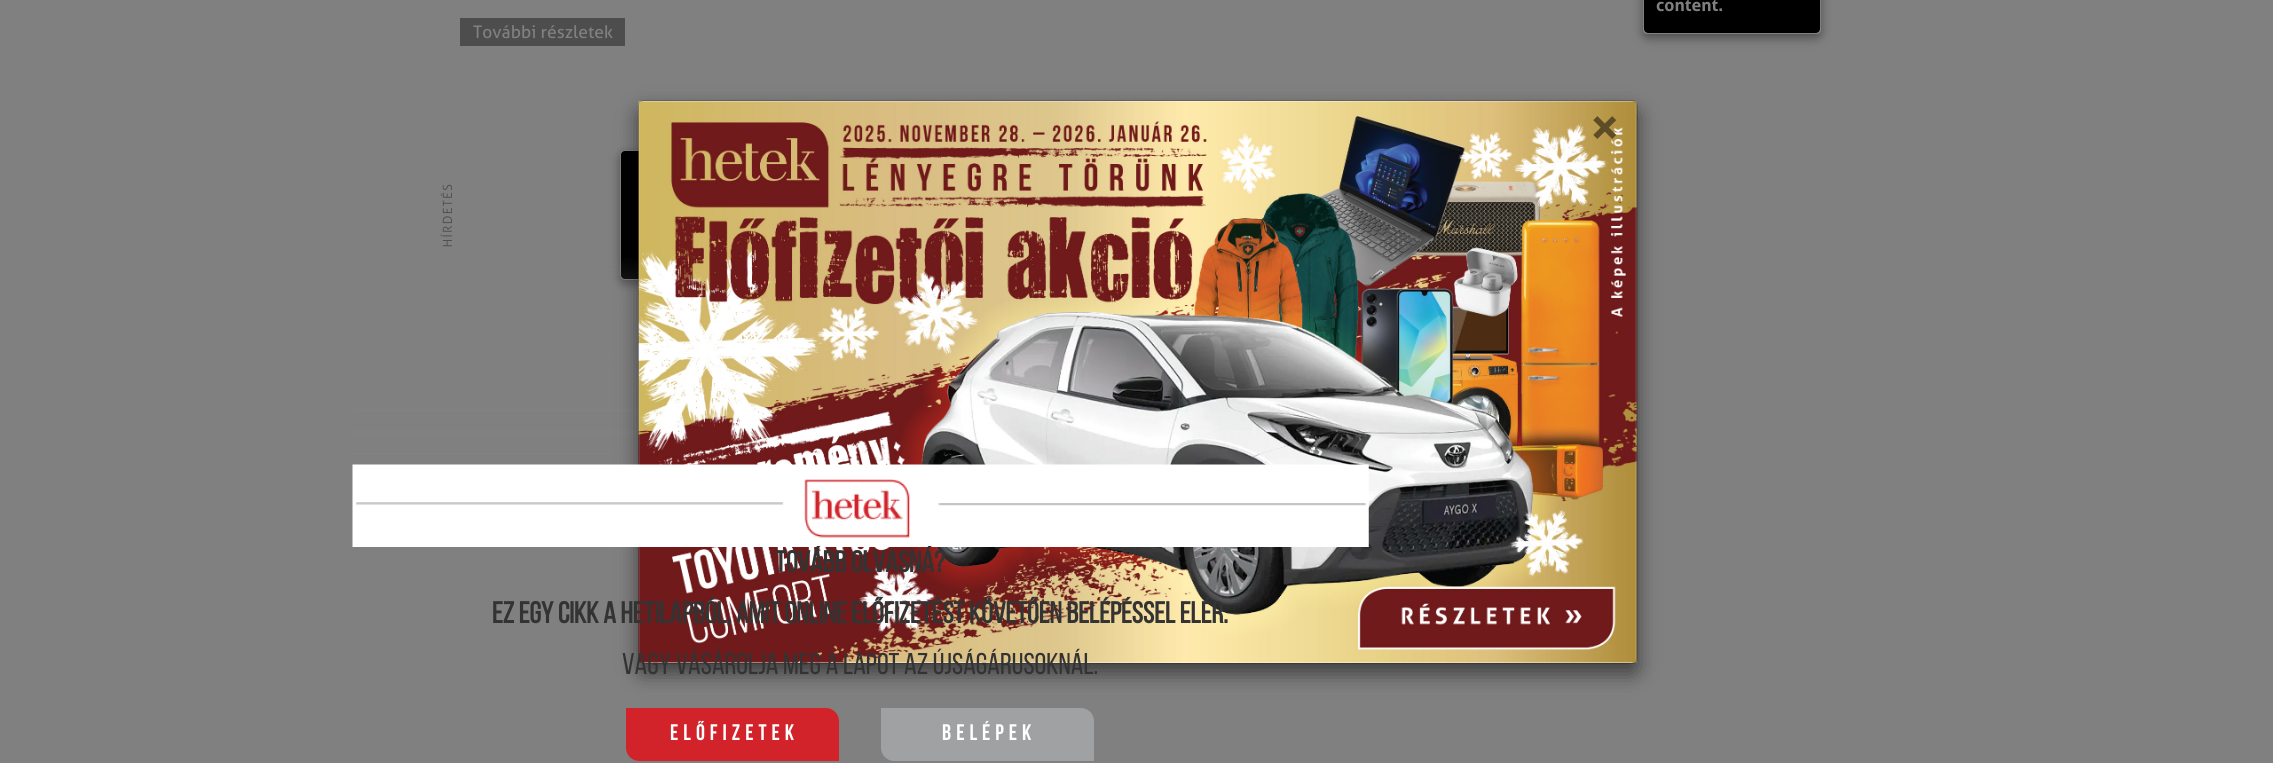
#include <cairo.h>
#include <math.h>
#include <stddef.h>


static void spaced_text(cairo_t *cr, double x, double y, const char *s, double letter, double word) {
    cairo_move_to(cr, x, y);
    while (*s) {
        char ch[5] = {0};
        int n = 0;
        do ch[n++] = *s++; while ((*s & 0xC0) == 0x80);
        cairo_show_text(cr, ch);
        cairo_rel_move_to(cr, letter + word * (*ch == ' '), 0);
    }
}

static void round_rect(cairo_t *cr, double x, double y, double w, double h, double r) {
    cairo_new_sub_path(cr);
    cairo_arc(cr, x + w - r, y + h - r, r, 0, M_PI / 2);
    cairo_arc(cr, x + r, y + h - r, r, M_PI / 2, M_PI);
    cairo_arc(cr, x + r, y + r, r, M_PI, 1.5 * M_PI);
    cairo_arc(cr, x + w - r, y + r, r, 1.5 * M_PI, 2 * M_PI);
    cairo_close_path(cr);
}

static void shadow(cairo_t *cr, double x, double y, double w, double h, double r, double blur, double alpha) {
    cairo_push_group_with_content(cr, CAIRO_CONTENT_ALPHA);
    cairo_set_operator(cr, CAIRO_OPERATOR_SOURCE);
    for (int i = 15; i >= -15 && fmin(w, h) + blur * i / 3 > 0; i -= 2) {
        double e = blur * i / 6;
        cairo_set_source_rgba(cr, 0, 0, 0, alpha * erfc((i - 1) / 8.5) / 2);
        round_rect(cr, x - e, y - e, w + 2 * e, h + 2 * e, fmax(0, fmin(r + e + blur * .6, fmin(w, h) / 2 + e)));
        cairo_fill(cr);
    }
    cairo_pattern_t *soft = cairo_pop_group(cr);
    cairo_mask(cr, soft);
    cairo_pattern_destroy(soft);
}

static void picture(cairo_t *cr, const char *path, double x, double y, double w, double h) {
    cairo_surface_t *image = cairo_image_surface_create_from_png(path);
    cairo_save(cr);
    cairo_set_source_surface(cr, image, x, y);
    cairo_rectangle(cr, x, y, w, h);
    cairo_fill(cr);
    cairo_restore(cr);
    cairo_surface_destroy(image);
}

int main(void) {
    cairo_surface_t *surface = cairo_image_surface_create(CAIRO_FORMAT_RGB24, 2273, 763);
    cairo_t *cr = cairo_create(surface);
    cairo_font_options_t *options = cairo_font_options_create();
    cairo_font_options_set_hint_metrics(options, CAIRO_HINT_METRICS_OFF);
    cairo_font_options_set_hint_style(options, CAIRO_HINT_STYLE_NONE);
    cairo_set_font_options(cr, options);
    cairo_set_miter_limit(cr, 4);
    cairo_pattern_t *gradient;
    cairo_set_source_rgb(cr, 0.502, 0.502, 0.502);
    cairo_paint(cr);
    cairo_save(cr);
    cairo_set_fill_rule(cr, CAIRO_FILL_RULE_EVEN_ODD);
    cairo_new_path(cr);
    cairo_move_to(cr, 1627, 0);
    cairo_line_to(cr, 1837, 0);
    cairo_line_to(cr, 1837, 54);
    cairo_line_to(cr, 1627, 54);
    cairo_close_path(cr);
    cairo_move_to(cr, 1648, -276);
    cairo_line_to(cr, 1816, -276);
    cairo_curve_to(cr, 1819, -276, 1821, -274, 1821, -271);
    cairo_line_to(cr, 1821, 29);
    cairo_curve_to(cr, 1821, 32, 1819, 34, 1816, 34);
    cairo_line_to(cr, 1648, 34);
    cairo_curve_to(cr, 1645, 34, 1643, 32, 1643, 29);
    cairo_line_to(cr, 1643, -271);
    cairo_curve_to(cr, 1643, -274, 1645, -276, 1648, -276);
    cairo_close_path(cr);
    cairo_clip(cr);
    cairo_set_source_rgb(cr, 0, 0, 0);
    shadow(cr, 1643, -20, 178, 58, 5, 5, 0.4);
    cairo_restore(cr);
    cairo_set_source_rgb(cr, 0, 0, 0);
    round_rect(cr, 1644, -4, 176, 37, 4);
    cairo_fill(cr);
    round_rect(cr, 1643.5, -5.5, 177, 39, 4.5);
    cairo_set_source_rgb(cr, 0.502, 0.502, 0.502);
    cairo_set_line_width(cr, 1);
    cairo_stroke(cr);
    cairo_select_font_face(cr, "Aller", CAIRO_FONT_SLANT_NORMAL, CAIRO_FONT_WEIGHT_BOLD);
    cairo_set_font_size(cr, 17.5);
    cairo_move_to(cr, 1656, 11);
    cairo_show_text(cr, "content.");
    cairo_set_source_rgb(cr, 0.373, 0.376, 0.38);
    cairo_new_path(cr);
    cairo_move_to(cr, 1369, 456);
    cairo_line_to(cr, 352, 456);
    cairo_line_to(cr, 354, 455);
    cairo_line_to(cr, 1368, 455);
    cairo_close_path(cr);
    cairo_fill(cr);
    cairo_set_source_rgb(cr, 0.302, 0.302, 0.302);
    cairo_rectangle(cr, 460, 18, 165, 28);
    cairo_fill(cr);
    cairo_select_font_face(cr, "Aller", CAIRO_FONT_SLANT_NORMAL, CAIRO_FONT_WEIGHT_NORMAL);
    cairo_set_source_rgb(cr, 0.502, 0.502, 0.502);
    cairo_move_to(cr, 473, 38);
    cairo_show_text(cr, "További részletek");
    cairo_set_source_rgb(cr, 0, 0, 0);
    shadow(cr, 620, 154, 480, 130, 5, 5, 0.4);
    cairo_set_source_rgb(cr, 0, 0, 0);
    round_rect(cr, 620.5, 150.5, 479, 129, 4.5);
    cairo_fill_preserve(cr);
    cairo_set_source_rgb(cr, 0.502, 0.502, 0.502);
    cairo_stroke(cr);
    picture(cr, "img1.png", 440, 184, 12, 63);
    gradient = cairo_pattern_create_linear(860, 105, 860, 559);
    cairo_pattern_add_color_stop_rgba(gradient, 0, 0.502, 0.502, 0.502, 0);
    cairo_pattern_add_color_stop_rgba(gradient, 0.33, 0.502, 0.502, 0.502, 0);
    cairo_pattern_add_color_stop_rgba(gradient, 0.67, 0.502, 0.502, 0.502, 0.95);
    cairo_pattern_add_color_stop_rgba(gradient, 1, 0.502, 0.502, 0.502, 1);
    cairo_set_source(cr, gradient);
    cairo_pattern_destroy(gradient);
    cairo_rectangle(cr, 353, 258, 286, 198);
    cairo_fill(cr);
    cairo_set_source_rgb(cr, 0, 0, 0);
    shadow(cr, 638, 110, 1000, 564, 6, 10, 0.5);
    cairo_set_source_rgb(cr, 1, 1, 1);
    round_rect(cr, 639, 101, 997, 562, 5);
    cairo_fill(cr);
    round_rect(cr, 638.5, 100.5, 999, 563, 5.5);
    cairo_set_source_rgba(cr, 0, 0, 0, 0.2);
    cairo_stroke(cr);
    picture(cr, "img3.png", 638, 100, 999, 563);
    picture(cr, "img2.png", 352, 464, 1017, 83);
    cairo_select_font_face(cr, "Bebas Neue", CAIRO_FONT_SLANT_NORMAL, CAIRO_FONT_WEIGHT_BOLD);
    cairo_set_font_size(cr, 30);
    cairo_set_source_rgb(cr, 0.2, 0.2, 0.2);
    cairo_move_to(cr, 775, 572);
    cairo_show_text(cr, "Tovább olvasná?");
    cairo_move_to(cr, 492, 623);
    cairo_show_text(cr, "Ez egy cikk a hetilapból, amit online előfizetést követően belépéssel elér.");
    cairo_select_font_face(cr, "Bebas Neue", CAIRO_FONT_SLANT_NORMAL, CAIRO_FONT_WEIGHT_NORMAL);
    cairo_move_to(cr, 622, 674);
    cairo_show_text(cr, "Vagy vásárolja meg a lapot az újságárusoknál.");
    cairo_set_source_rgb(cr, 0.824, 0.137, 0.165);
    cairo_new_path(cr);
    cairo_move_to(cr, 626, 708);
    cairo_line_to(cr, 826, 708);
    cairo_curve_to(cr, 833, 708, 839, 714, 839, 721);
    cairo_line_to(cr, 839, 761);
    cairo_line_to(cr, 639, 761);
    cairo_curve_to(cr, 632, 761, 626, 755, 626, 748);
    cairo_close_path(cr);
    cairo_fill(cr);
    cairo_select_font_face(cr, "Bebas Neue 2", CAIRO_FONT_SLANT_NORMAL, CAIRO_FONT_WEIGHT_BOLD);
    cairo_set_font_size(cr, 22.5);
    cairo_set_source_rgb(cr, 1, 1, 1);
    spaced_text(cr, 670, 740, "Előfizetek", 5, 0);
    cairo_set_source_rgb(cr, 0.627, 0.631, 0.639);
    cairo_new_path(cr);
    cairo_move_to(cr, 881, 708);
    cairo_line_to(cr, 1081, 708);
    cairo_curve_to(cr, 1088, 708, 1094, 714, 1094, 721);
    cairo_line_to(cr, 1094, 761);
    cairo_line_to(cr, 894, 761);
    cairo_curve_to(cr, 887, 761, 881, 755, 881, 748);
    cairo_close_path(cr);
    cairo_fill(cr);
    cairo_set_source_rgb(cr, 1, 1, 1);
    spaced_text(cr, 942, 740, "Belépek", 5, 0);
    cairo_select_font_face(cr, "Bebas Neue", CAIRO_FONT_SLANT_NORMAL, CAIRO_FONT_WEIGHT_BOLD);
    cairo_set_font_size(cr, 70);
    cairo_set_source_rgb(cr, 0.365, 0.302, 0.149);
    cairo_move_to(cr, 1591, 153);
    cairo_show_text(cr, "×");
    cairo_surface_write_to_png(surface, "page.png");
    cairo_font_options_destroy(options);
    cairo_destroy(cr);
    cairo_surface_destroy(surface);
    return 0;
}
